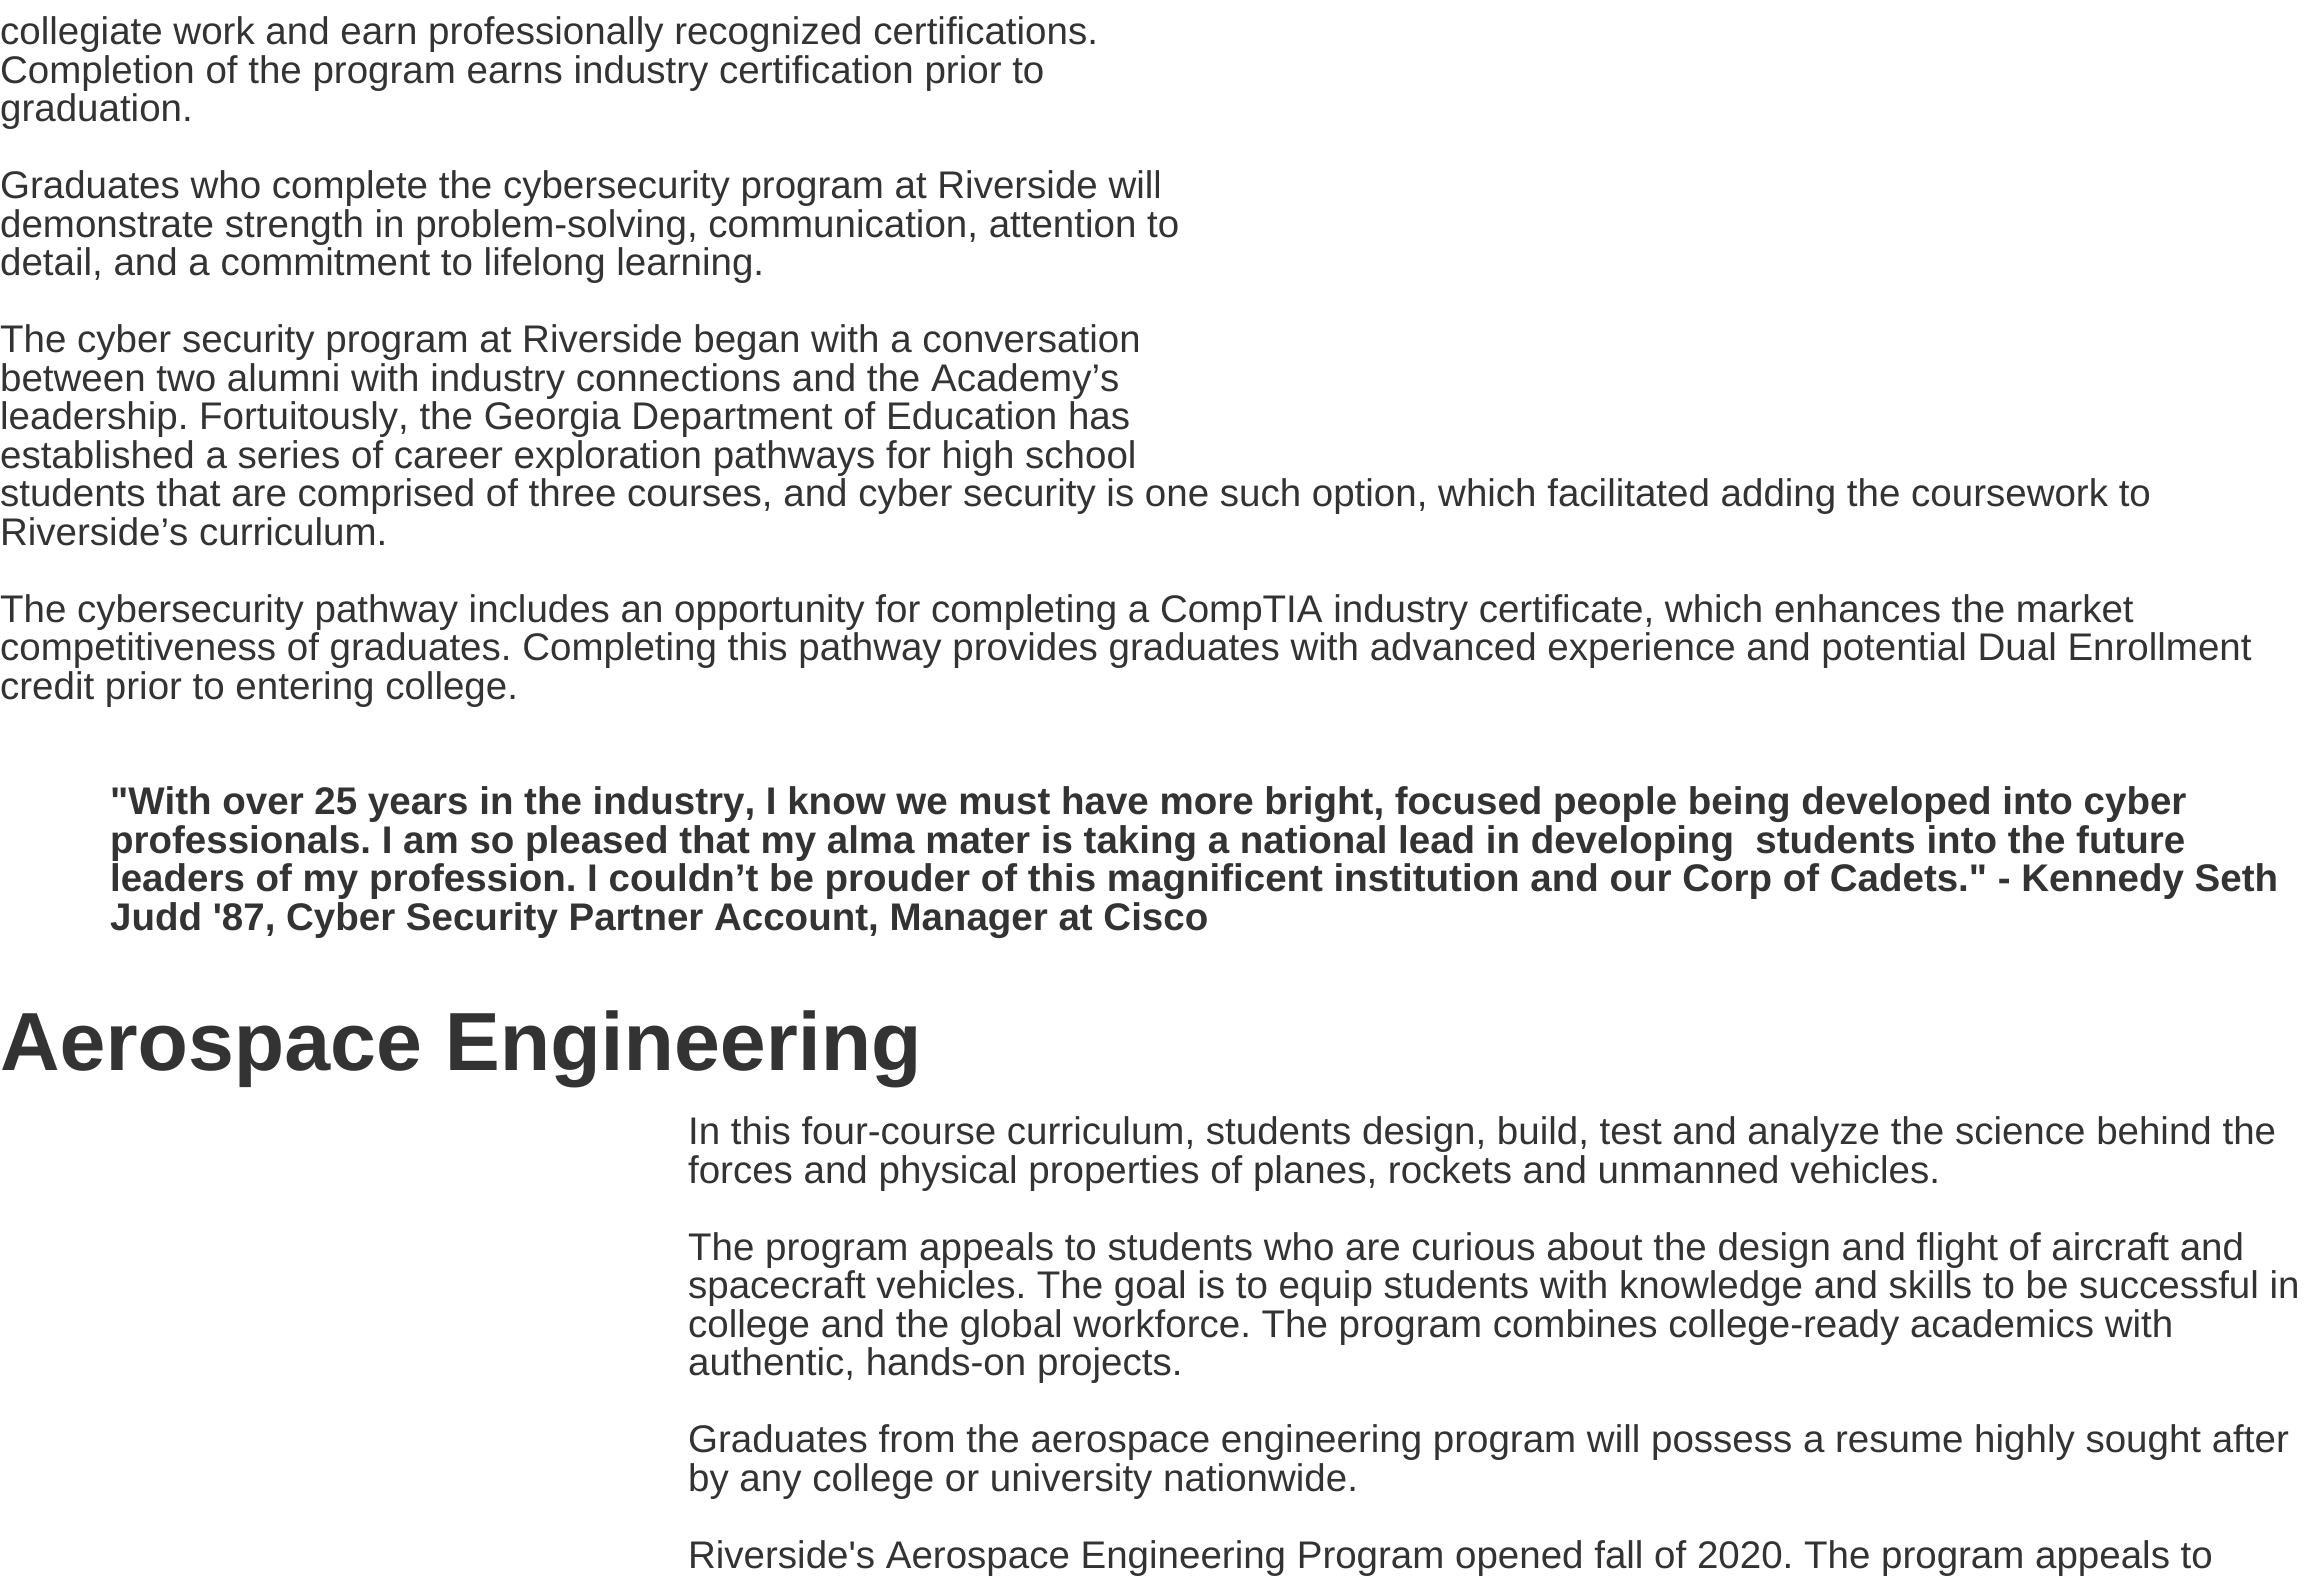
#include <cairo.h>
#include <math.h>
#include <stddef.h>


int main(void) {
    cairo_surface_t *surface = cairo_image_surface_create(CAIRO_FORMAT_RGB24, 2314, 1585);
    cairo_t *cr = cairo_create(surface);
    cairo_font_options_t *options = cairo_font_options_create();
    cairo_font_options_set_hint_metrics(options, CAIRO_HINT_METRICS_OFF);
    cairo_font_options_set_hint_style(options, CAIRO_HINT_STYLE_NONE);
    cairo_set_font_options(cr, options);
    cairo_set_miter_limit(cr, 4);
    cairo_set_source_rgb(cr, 1, 1, 1);
    cairo_paint(cr);
    cairo_select_font_face(cr, "Liberation Sans", CAIRO_FONT_SLANT_NORMAL, CAIRO_FONT_WEIGHT_NORMAL);
    cairo_set_font_size(cr, 38.5);
    cairo_set_source_rgb(cr, 0.2, 0.2, 0.2);
    cairo_move_to(cr, 0, 44);
    cairo_show_text(cr, "collegiate work and earn professionally recognized certifications.");
    cairo_move_to(cr, 0, 83);
    cairo_show_text(cr, "Completion of the program earns industry certification prior to");
    cairo_move_to(cr, 0, 121);
    cairo_show_text(cr, "graduation.");
    cairo_move_to(cr, 0, 198);
    cairo_show_text(cr, "Graduates who complete the cybersecurity program at Riverside will");
    cairo_move_to(cr, 0, 237);
    cairo_show_text(cr, "demonstrate strength in problem-solving, communication, attention to");
    cairo_move_to(cr, 0, 275);
    cairo_show_text(cr, "detail, and a commitment to lifelong learning.");
    cairo_move_to(cr, 0, 352);
    cairo_show_text(cr, "The cyber security program at Riverside began with a conversation");
    cairo_move_to(cr, 0, 391);
    cairo_show_text(cr, "between two alumni with industry connections and the Academy’s");
    cairo_move_to(cr, 0, 429);
    cairo_show_text(cr, "leadership. Fortuitously, the Georgia Department of Education has");
    cairo_move_to(cr, 0, 468);
    cairo_show_text(cr, "established a series of career exploration pathways for high school");
    cairo_move_to(cr, 0, 506);
    cairo_show_text(cr, "students that are comprised of three courses, and cyber security is one such option, which facilitated adding the coursework to");
    cairo_move_to(cr, 0, 545);
    cairo_show_text(cr, "Riverside’s curriculum.");
    cairo_move_to(cr, 0, 622);
    cairo_show_text(cr, "The cybersecurity pathway includes an opportunity for completing a CompTIA industry certificate, which enhances the market");
    cairo_move_to(cr, 0, 660);
    cairo_show_text(cr, "competitiveness of graduates. Completing this pathway provides graduates with advanced experience and potential Dual Enrollment");
    cairo_move_to(cr, 0, 699);
    cairo_show_text(cr, "credit prior to entering college.");
    cairo_select_font_face(cr, "Liberation Sans", CAIRO_FONT_SLANT_NORMAL, CAIRO_FONT_WEIGHT_BOLD);
    cairo_move_to(cr, 110, 814);
    cairo_show_text(cr, "\"With over 25 years in the industry, I know we must have more bright, focused people being developed into cyber");
    cairo_move_to(cr, 110, 853);
    cairo_show_text(cr, "professionals. I am so pleased that my alma mater is taking a national lead in developing  students into the future");
    cairo_move_to(cr, 110, 891);
    cairo_show_text(cr, "leaders of my profession. I couldn’t be prouder of this magnificent institution and our Corp of Cadets.\" - Kennedy Seth");
    cairo_move_to(cr, 110, 930);
    cairo_show_text(cr, "Judd '87, Cyber Security Partner Account, Manager at Cisco");
    cairo_set_font_size(cr, 82.5);
    cairo_move_to(cr, 0, 1070);
    cairo_show_text(cr, "Aerospace Engineering");
    cairo_select_font_face(cr, "Liberation Sans", CAIRO_FONT_SLANT_NORMAL, CAIRO_FONT_WEIGHT_NORMAL);
    cairo_set_font_size(cr, 38.5);
    cairo_move_to(cr, 688, 1144);
    cairo_show_text(cr, "In this four-course curriculum, students design, build, test and analyze the science behind the");
    cairo_move_to(cr, 688, 1183);
    cairo_show_text(cr, "forces and physical properties of planes, rockets and unmanned vehicles.");
    cairo_move_to(cr, 688, 1260);
    cairo_show_text(cr, "The program appeals to students who are curious about the design and flight of aircraft and");
    cairo_move_to(cr, 688, 1298);
    cairo_show_text(cr, "spacecraft vehicles. The goal is to equip students with knowledge and skills to be successful in");
    cairo_move_to(cr, 688, 1337);
    cairo_show_text(cr, "college and the global workforce. The program combines college-ready academics with");
    cairo_move_to(cr, 688, 1375);
    cairo_show_text(cr, "authentic, hands-on projects.");
    cairo_move_to(cr, 688, 1452);
    cairo_show_text(cr, "Graduates from the aerospace engineering program will possess a resume highly sought after");
    cairo_move_to(cr, 688, 1491);
    cairo_show_text(cr, "by any college or university nationwide.");
    cairo_move_to(cr, 688, 1568);
    cairo_show_text(cr, "Riverside's Aerospace Engineering Program opened fall of 2020. The program appeals to");
    cairo_surface_write_to_png(surface, "page.png");
    cairo_font_options_destroy(options);
    cairo_destroy(cr);
    cairo_surface_destroy(surface);
    return 0;
}
